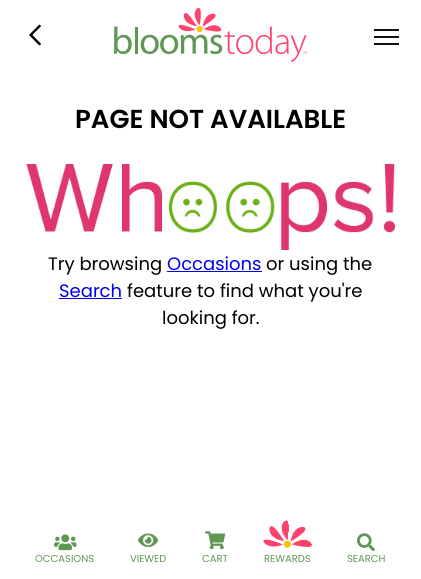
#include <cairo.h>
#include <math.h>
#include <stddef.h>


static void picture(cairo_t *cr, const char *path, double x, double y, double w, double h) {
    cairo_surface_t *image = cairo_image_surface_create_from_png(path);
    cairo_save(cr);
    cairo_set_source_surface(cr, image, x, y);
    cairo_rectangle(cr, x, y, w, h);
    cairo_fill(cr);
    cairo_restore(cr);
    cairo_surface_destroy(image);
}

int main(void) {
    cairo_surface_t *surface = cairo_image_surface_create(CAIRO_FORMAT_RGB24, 421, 579);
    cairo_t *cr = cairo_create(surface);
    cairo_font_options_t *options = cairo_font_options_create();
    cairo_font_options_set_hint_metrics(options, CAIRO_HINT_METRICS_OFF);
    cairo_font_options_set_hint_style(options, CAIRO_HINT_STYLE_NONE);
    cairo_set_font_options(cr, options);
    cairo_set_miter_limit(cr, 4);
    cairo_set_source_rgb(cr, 1, 1, 1);
    cairo_paint(cr);
    picture(cr, "img1.png", 29, 24, 12, 22);
    picture(cr, "img2.png", 114, 7, 193, 56);
    cairo_set_source_rgb(cr, 0.055, 0.067, 0.067);
    cairo_rectangle(cr, 374, 29, 25, 2);
    cairo_fill(cr);
    cairo_rectangle(cr, 374, 36, 25, 2);
    cairo_fill(cr);
    cairo_rectangle(cr, 374, 43, 25, 2);
    cairo_fill(cr);
    cairo_select_font_face(cr, "Poppins SemiBold", CAIRO_FONT_SLANT_NORMAL, CAIRO_FONT_WEIGHT_NORMAL);
    cairo_set_font_size(cr, 26);
    cairo_set_source_rgb(cr, 0, 0, 0);
    cairo_move_to(cr, 75, 128);
    cairo_show_text(cr, "PAGE NOT AVAILABLE");
    picture(cr, "img3.png", 26, 164, 369, 86);
    cairo_select_font_face(cr, "Poppins", CAIRO_FONT_SLANT_NORMAL, CAIRO_FONT_WEIGHT_NORMAL);
    cairo_set_font_size(cr, 18);
    cairo_move_to(cr, 48, 270);
    cairo_show_text(cr, "Try browsing");
    cairo_set_source_rgb(cr, 0, 0, 0.933);
    cairo_move_to(cr, 167, 270);
    cairo_show_text(cr, "Occasions");
    cairo_rectangle(cr, 167, 271, 95, 1);
    cairo_fill(cr);
    cairo_set_source_rgb(cr, 0, 0, 0);
    cairo_move_to(cr, 266, 270);
    cairo_show_text(cr, "or using the");
    cairo_set_source_rgb(cr, 0, 0, 0.933);
    cairo_move_to(cr, 59, 297);
    cairo_show_text(cr, "Search");
    cairo_rectangle(cr, 59, 298, 63, 1);
    cairo_fill(cr);
    cairo_set_source_rgb(cr, 0, 0, 0);
    cairo_move_to(cr, 127, 297);
    cairo_show_text(cr, "feature to find what you're");
    cairo_move_to(cr, 162, 324);
    cairo_show_text(cr, "looking for.");
    picture(cr, "img4.png", 54, 534, 23, 17);
    cairo_set_font_size(cr, 10);
    cairo_set_source_rgb(cr, 0.373, 0.592, 0.329);
    cairo_move_to(cr, 35, 562);
    cairo_show_text(cr, "OCCASIONS");
    picture(cr, "img5.png", 138, 533, 21, 14);
    cairo_move_to(cr, 130, 562);
    cairo_show_text(cr, "VIEWED");
    picture(cr, "img6.png", 205, 531, 21, 19);
    cairo_move_to(cr, 202, 562);
    cairo_show_text(cr, "CART");
    picture(cr, "img7.png", 263, 520, 49, 28);
    cairo_move_to(cr, 264, 562);
    cairo_show_text(cr, "REWARDS");
    picture(cr, "img8.png", 357, 533, 18, 19);
    cairo_move_to(cr, 347, 562);
    cairo_show_text(cr, "SEARCH");
    cairo_surface_write_to_png(surface, "page.png");
    cairo_font_options_destroy(options);
    cairo_destroy(cr);
    cairo_surface_destroy(surface);
    return 0;
}
